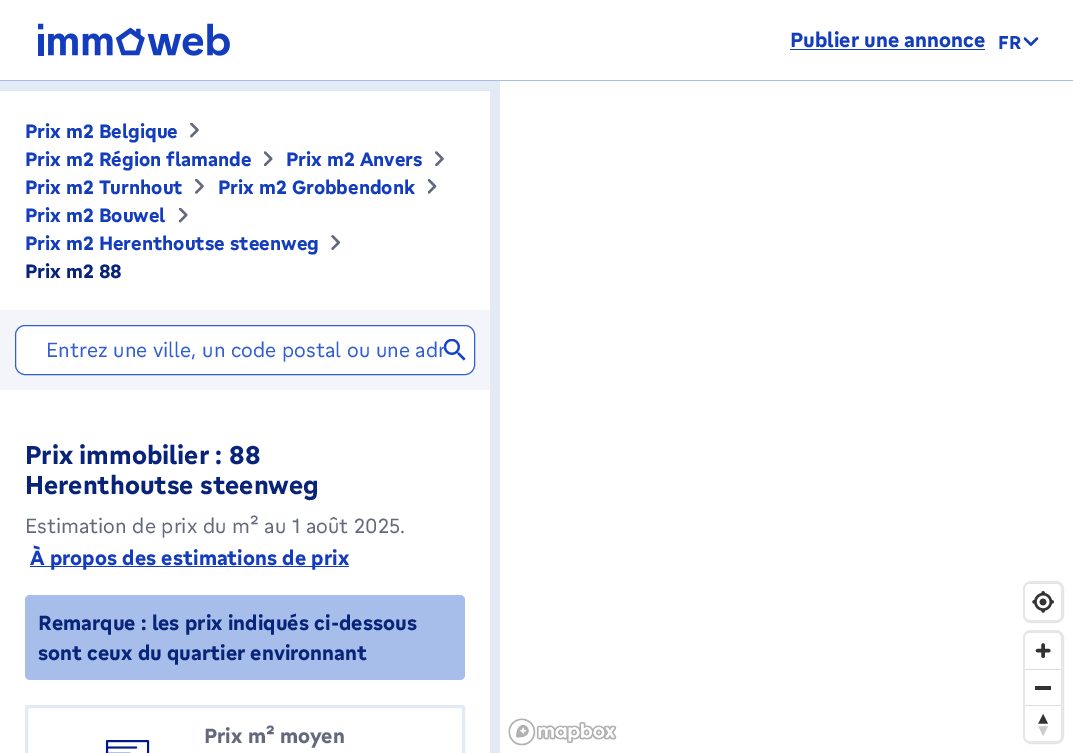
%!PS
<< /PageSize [1073 753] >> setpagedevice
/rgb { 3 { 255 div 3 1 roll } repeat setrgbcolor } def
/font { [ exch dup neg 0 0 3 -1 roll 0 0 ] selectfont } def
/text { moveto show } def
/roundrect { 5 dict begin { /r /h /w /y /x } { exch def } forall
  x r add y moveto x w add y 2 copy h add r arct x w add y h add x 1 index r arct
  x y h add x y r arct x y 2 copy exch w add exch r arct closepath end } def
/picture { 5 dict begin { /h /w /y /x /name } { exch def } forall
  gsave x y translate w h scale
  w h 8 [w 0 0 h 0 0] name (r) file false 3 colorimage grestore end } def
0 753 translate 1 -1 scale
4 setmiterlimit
255 255 255 rgb
0 0 1073 753 rectfill
168 190 234 rgb
0 80 1073 1 rectfill
(img_01.rgb) 38 23 192 33 picture
19 61 189 rgb
790 49 195 1 rectfill
(img_02.rgb) 1023 37 16 9 picture
228 234 245 rgb
0 81 500 672 rectfill
255 255 255 rgb
0 91 490 219 rectfill
(img_03.rgb) 190 123 9 15 picture
(img_04.rgb) 264 151 9 15 picture
(img_05.rgb) 435 151 9 15 picture
(img_06.rgb) 195 179 9 15 picture
(img_07.rgb) 428 179 9 15 picture
(img_08.rgb) 179 208 9 15 picture
(img_09.rgb) 331 235 10 15 picture
243 245 250 rgb
0 310 490 80 rectfill
255 255 255 rgb
15.5 325.5 459 49 9.5 roundrect gsave fill grestore
49 94 209 rgb
stroke
(img_10.rgb) 444 339 22 22 picture
255 255 255 rgb
0 390 490 363 rectfill
19 61 189 rgb
30 566 319 1 rectfill
168 190 234 rgb
25 595 440 85 5 roundrect fill
228 234 245 rgb
3 setlinewidth
26.5 706.5 437 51 1 roundrect stroke
(img_11.rgb) 105 740 45 13 picture
(img_12.rgb) 508 718 109 28 picture
230 230 230 rgb
1024.5 582.5 38 39 6.5 roundrect stroke
255 255 255 rgb
1025 584 36 36 5 roundrect fill
(img_13.rgb) 1032 591 22 22 picture
230 230 230 rgb
1024.5 631.5 38 111 6.5 roundrect stroke
255 255 255 rgb
1025 633 36 108 5 roundrect fill
(img_14.rgb) 1035 643 16 16 picture
221 221 221 rgb
1025 669 36 1 rectfill
51 51 51 rgb
1035 686 16 4 rectfill
221 221 221 rgb
1025 705 36 1 rectfill
(img_15.rgb) 1038 713 10 23 picture
/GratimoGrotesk-Bold 20 font
19 61 189 rgb
(Publier une annonce) 790 47 text
/GratimoGrotesk-Bold 18 font
(FR) 998 49 text
/GratimoGrotesk-Bold 18.75 font
(Prix m2 Belgique) 25 138 text
(Prix m2 Région flamande) 25 166 text
(Prix m2 Anvers) 286 166 text
(Prix m2 Turnhout) 25 194 text
(Prix m2 Grobbendonk) 218 194 text
(Prix m2 Bouwel) 25 222 text
(Prix m2 Herenthoutse steenweg) 25 250 text
8 36 121 rgb
(Prix m2 88) 25 278 text
/GratimoGrotesk-Regular 20 font
49 94 209 rgb
(Entrez une ville, un code postal ou une adr) 46 357 text
/GratimoGrotesk-Bold 25 font
8 36 121 rgb
(Prix immobilier : 88) 25 464 text
(Herenthoutse steenweg) 25 494 text
/GratimoGrotesk-Regular 20 font
99 105 125 rgb
(Estimation de prix du m² au 1 août 2025.) 25 533 text
/GratimoGrotesk-Bold 20 font
19 61 189 rgb
(À propos des estimations de prix) 30 565 text
8 36 121 rgb
(Remarque : les prix indiqués ci-dessous) 38 630 text
(sont ceux du quartier environnant) 38 660 text
99 105 125 rgb
(Prix m² moyen) 204 743 text
showpage
